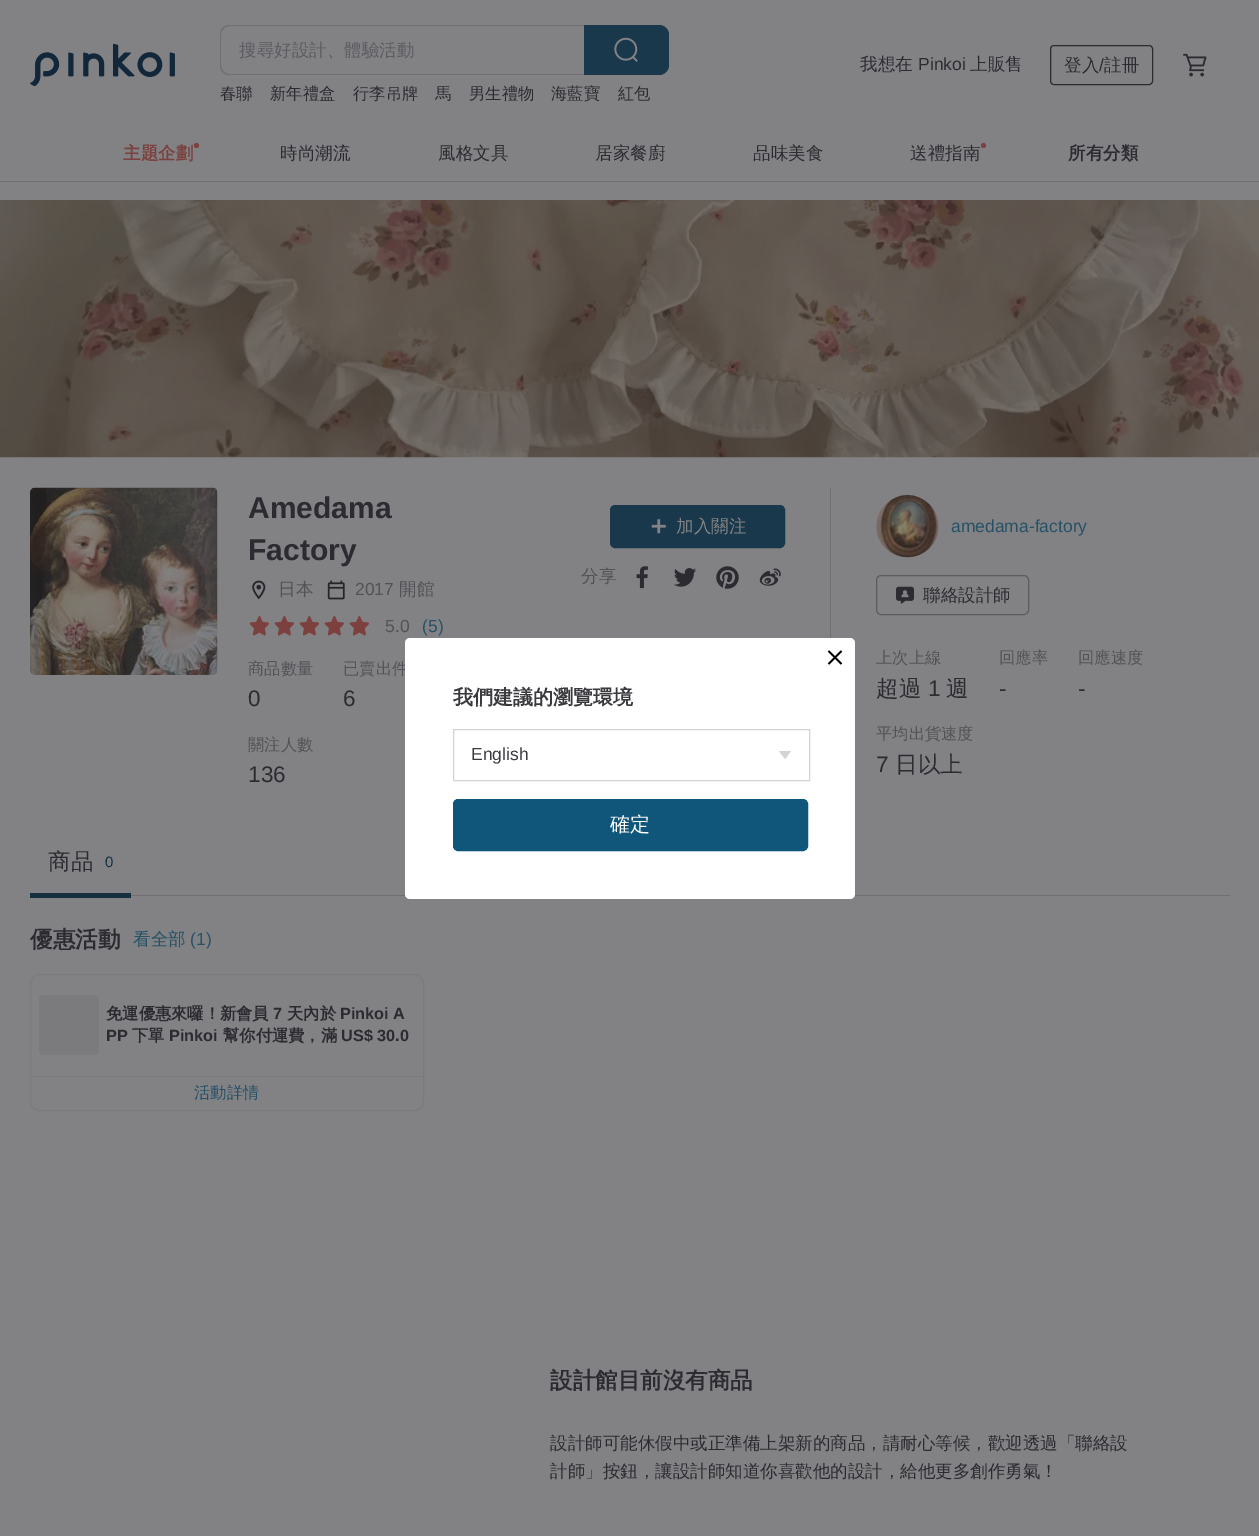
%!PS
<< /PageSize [1259 1536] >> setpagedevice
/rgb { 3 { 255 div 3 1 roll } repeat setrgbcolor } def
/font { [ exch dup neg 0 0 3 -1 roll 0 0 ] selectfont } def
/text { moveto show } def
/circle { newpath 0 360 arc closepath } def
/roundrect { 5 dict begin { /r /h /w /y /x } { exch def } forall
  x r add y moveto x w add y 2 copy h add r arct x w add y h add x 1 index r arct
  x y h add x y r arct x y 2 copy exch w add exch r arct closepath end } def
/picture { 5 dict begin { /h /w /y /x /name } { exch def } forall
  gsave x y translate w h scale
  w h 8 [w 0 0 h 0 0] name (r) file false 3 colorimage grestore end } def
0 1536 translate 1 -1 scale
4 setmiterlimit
130 130 133 rgb
0 0 1259 1536 rectfill
(img_01.rgb) 30 43 145 44 picture
111 111 115 rgb
230 25 moveto 354 0 rlineto 0 50 rlineto -354 0 rlineto -6 0 -10 -4 -10 -10 rcurveto 0 -30 rlineto 0 -6 4 -10 10 -10 rcurveto closepath 230 26 moveto 354 0 rlineto 0 48 rlineto -354 0 rlineto -5 0 -9 -4 -9 -9 rcurveto 0 -30 rlineto 0 -5 4 -9 9 -9 rcurveto closepath eofill
25 56 75 rgb
584 25 moveto 75 0 rlineto 5.5 0 10 4.5 10 10 rcurveto 0 30 rlineto 0 5.5 -4.5 10 -10 10 rcurveto -75 0 rlineto closepath fill
(img_02.rgb) 614 37 24 25 picture
43 43 49 rgb
1050.5 45.5 102 39 3.5 roundrect stroke
(img_03.rgb) 1183 53 24 24 picture
111 111 115 rgb
0 181 1259 1 rectfill
124 65 62 rgb
196.5 145.5 2.5 circle fill
983.5 145.5 2.5 circle fill
(img_04.rgb) 0 200 1259 258 picture
(img_05.rgb) 30 488 187 187 picture
(img_06.rgb) 30 487 188 188 picture
(img_07.rgb) 252 580 14 20 picture
(img_08.rgb) 327 580 18 20 picture
(img_09.rgb) 249 615 21 21 picture
(img_09.rgb) 274 615 21 21 picture
(img_09.rgb) 299 615 21 21 picture
(img_09.rgb) 324 615 21 21 picture
(img_09.rgb) 349 615 21 21 picture
25 56 75 rgb
610.5 505.5 174 42 4.5 roundrect gsave fill grestore
stroke
(img_10.rgb) 651 519 15 15 picture
(img_11.rgb) 636 566 12 23 picture
(img_12.rgb) 674 568 22 19 picture
(img_13.rgb) 716 566 23 23 picture
(img_14.rgb) 759 568 22 18 picture
111 111 115 rgb
830 488 1 150 rectfill
(img_15.rgb) 876 495 63 63 picture
92 92 97 rgb
876.5 575.5 152 39 4.5 roundrect stroke
(img_16.rgb) 896 586 18 18 picture
111 111 115 rgb
131 895 1099 1 rectfill
21 47 64 rgb
30 893 101 5 rectfill
123 123 126 rgb
30.5 974.5 393 136 9.5 roundrect stroke
39 995 60 60 5 roundrect fill
31 1076 392 1 rectfill
/WenQuanYiZenHei-Medium 17.5 font
92 92 97 rgb
(搜尋好設計、體驗活動) 239 56 text
/WenQuanYiZenHei-Medium 16.25 font
43 43 49 rgb
(春聯) 220 99 text
(新年禮盒) 270 99 text
(行李吊牌) 353 99 text
(馬) 435 99 text
(男生禮物) 469 99 text
(海藍寶) 551 99 text
(紅包) 618 99 text
/WenQuanYiZenHei-Medium 17.5 font
(我想在) 860 70 text
/LiberationSans-Regular 17.5 font
(Pinkoi) 918 70 text
/WenQuanYiZenHei-Medium 17.5 font
(上販售) 970 70 text
(登入) 1064 71 text
/LiberationSans-Regular 17.5 font
(/) 1099 71 text
/WenQuanYiZenHei-Medium 17.5 font
(註冊) 1104 71 text
/WenQuanYiZenHei-Bold 17.5 font
124 65 62 rgb
(主題企劃) 123 159 text
/WenQuanYiZenHei-Medium 17.5 font
43 43 49 rgb
(時尚潮流) 280 159 text
(風格文具) 438 159 text
(居家餐廚) 595 159 text
(品味美食) 753 159 text
(送禮指南) 910 159 text
/WenQuanYiZenHei-Bold 17.5 font
(所有分類) 1068 159 text
/LiberationSans-Bold 30 font
(Amedama) 248 518 text
(Factory) 248 560 text
/WenQuanYiZenHei-Medium 17.5 font
82 82 87 rgb
(日本) 278 595 text
/LiberationSans-Regular 17.5 font
(2017) 355 595 text
/WenQuanYiZenHei-Medium 17.5 font
(開館) 399 595 text
/LiberationSans-Regular 17.5 font
(5.0) 385 632 text
38 81 102 rgb
(\(5\)) 422 632 text
/WenQuanYiZenHei-Medium 16.25 font
82 82 87 rgb
(商品數量) 248 674 text
/LiberationSans-Regular 22.5 font
43 43 49 rgb
(0) 248 706 text
/WenQuanYiZenHei-Medium 16.25 font
82 82 87 rgb
(已賣出件) 343 674 text
/LiberationSans-Regular 22.5 font
43 43 49 rgb
(6) 343 706 text
/WenQuanYiZenHei-Medium 16.25 font
82 82 87 rgb
(關注人數) 248 750 text
/LiberationSans-Regular 22.5 font
43 43 49 rgb
(136) 248 782 text
/WenQuanYiZenHei-Medium 17.5 font
130 130 133 rgb
(加入關注) 676 532 text
82 82 87 rgb
(分享) 581 582 text
/LiberationSans-Regular 17.5 font
38 81 102 rgb
(amedama-factory) 951 532 text
/WenQuanYiZenHei-Medium 17.5 font
43 43 49 rgb
(聯絡設計師) 923 601 text
/WenQuanYiZenHei-Medium 16.25 font
82 82 87 rgb
(上次上線) 876 663 text
/WenQuanYiZenHei-Medium 22.5 font
43 43 49 rgb
(超過) 876 696 text
/LiberationSans-Regular 22.5 font
(1) 928 696 text
/WenQuanYiZenHei-Medium 22.5 font
(週) 946 696 text
/WenQuanYiZenHei-Medium 16.25 font
82 82 87 rgb
(回應率) 999 663 text
/LiberationSans-Regular 22.5 font
43 43 49 rgb
(-) 999 696 text
/WenQuanYiZenHei-Medium 16.25 font
82 82 87 rgb
(回應速度) 1078 663 text
/LiberationSans-Regular 22.5 font
43 43 49 rgb
(-) 1078 696 text
/WenQuanYiZenHei-Medium 16.25 font
82 82 87 rgb
(平均出貨速度) 876 739 text
/LiberationSans-Regular 22.5 font
43 43 49 rgb
(7) 876 772 text
/WenQuanYiZenHei-Medium 22.5 font
(日以上) 895 772 text
(商品) 48 869 text
/LiberationSans-Regular 15 font
21 47 64 rgb
(0) 105 867 text
/WenQuanYiZenHei-Bold 22.5 font
43 43 49 rgb
(優惠活動) 30 947 text
/WenQuanYiZenHei-Medium 17.5 font
38 81 102 rgb
(看全部) 133 945 text
/LiberationSans-Regular 17.5 font
(\(1\)) 190 945 text
/WenQuanYiZenHei-Bold 16.25 font
43 43 49 rgb
(免運優惠來囉！新會員) 106 1019 text
/LiberationSans-Bold 16.25 font
(7) 273 1019 text
/WenQuanYiZenHei-Bold 16.25 font
(天內於) 287 1019 text
/LiberationSans-Bold 16.25 font
(Pinkoi A) 340 1019 text
(PP) 106 1041 text
/WenQuanYiZenHei-Bold 16.25 font
(下單) 132 1041 text
/LiberationSans-Bold 16.25 font
(Pinkoi) 169 1041 text
/WenQuanYiZenHei-Bold 16.25 font
(幫你付運費，滿) 223 1041 text
/LiberationSans-Bold 16.25 font
(US$ 30.0) 341 1041 text
/WenQuanYiZenHei-Medium 16.25 font
38 81 102 rgb
(活動詳情) 194 1098 text
/WenQuanYiZenHei-Bold 22.5 font
43 43 49 rgb
(設計館目前沒有商品) 550 1388 text
/WenQuanYiZenHei-Medium 17.5 font
(設計師可能休假中或正準備上架新的商品，請耐心等候，歡迎透過「聯絡設) 550 1449 text
(計師」按鈕，讓設計師知道你喜歡他的設計，給他更多創作勇氣！) 550 1477 text
255 255 255 rgb
405 638 450 261 5 roundrect fill
(img_17.rgb) 827 650 16 15 picture
/WenQuanYiZenHei-Bold 20 font
57 57 62 rgb
(我們建議的瀏覽環境) 453 704 text
211 211 213 rgb
453.5 729.5 356 51 rectstroke
779 751 moveto 12 0 rlineto -6 8 rlineto closepath eofill
/LiberationSans-Regular 17.5 font
57 57 62 rgb
(English) 471 760 text
16 86 123 rgb
453.5 799.5 354 51 4.5 roundrect gsave fill grestore
stroke
/WenQuanYiZenHei-Medium 20 font
255 255 255 rgb
(確定) 610 831 text
showpage
